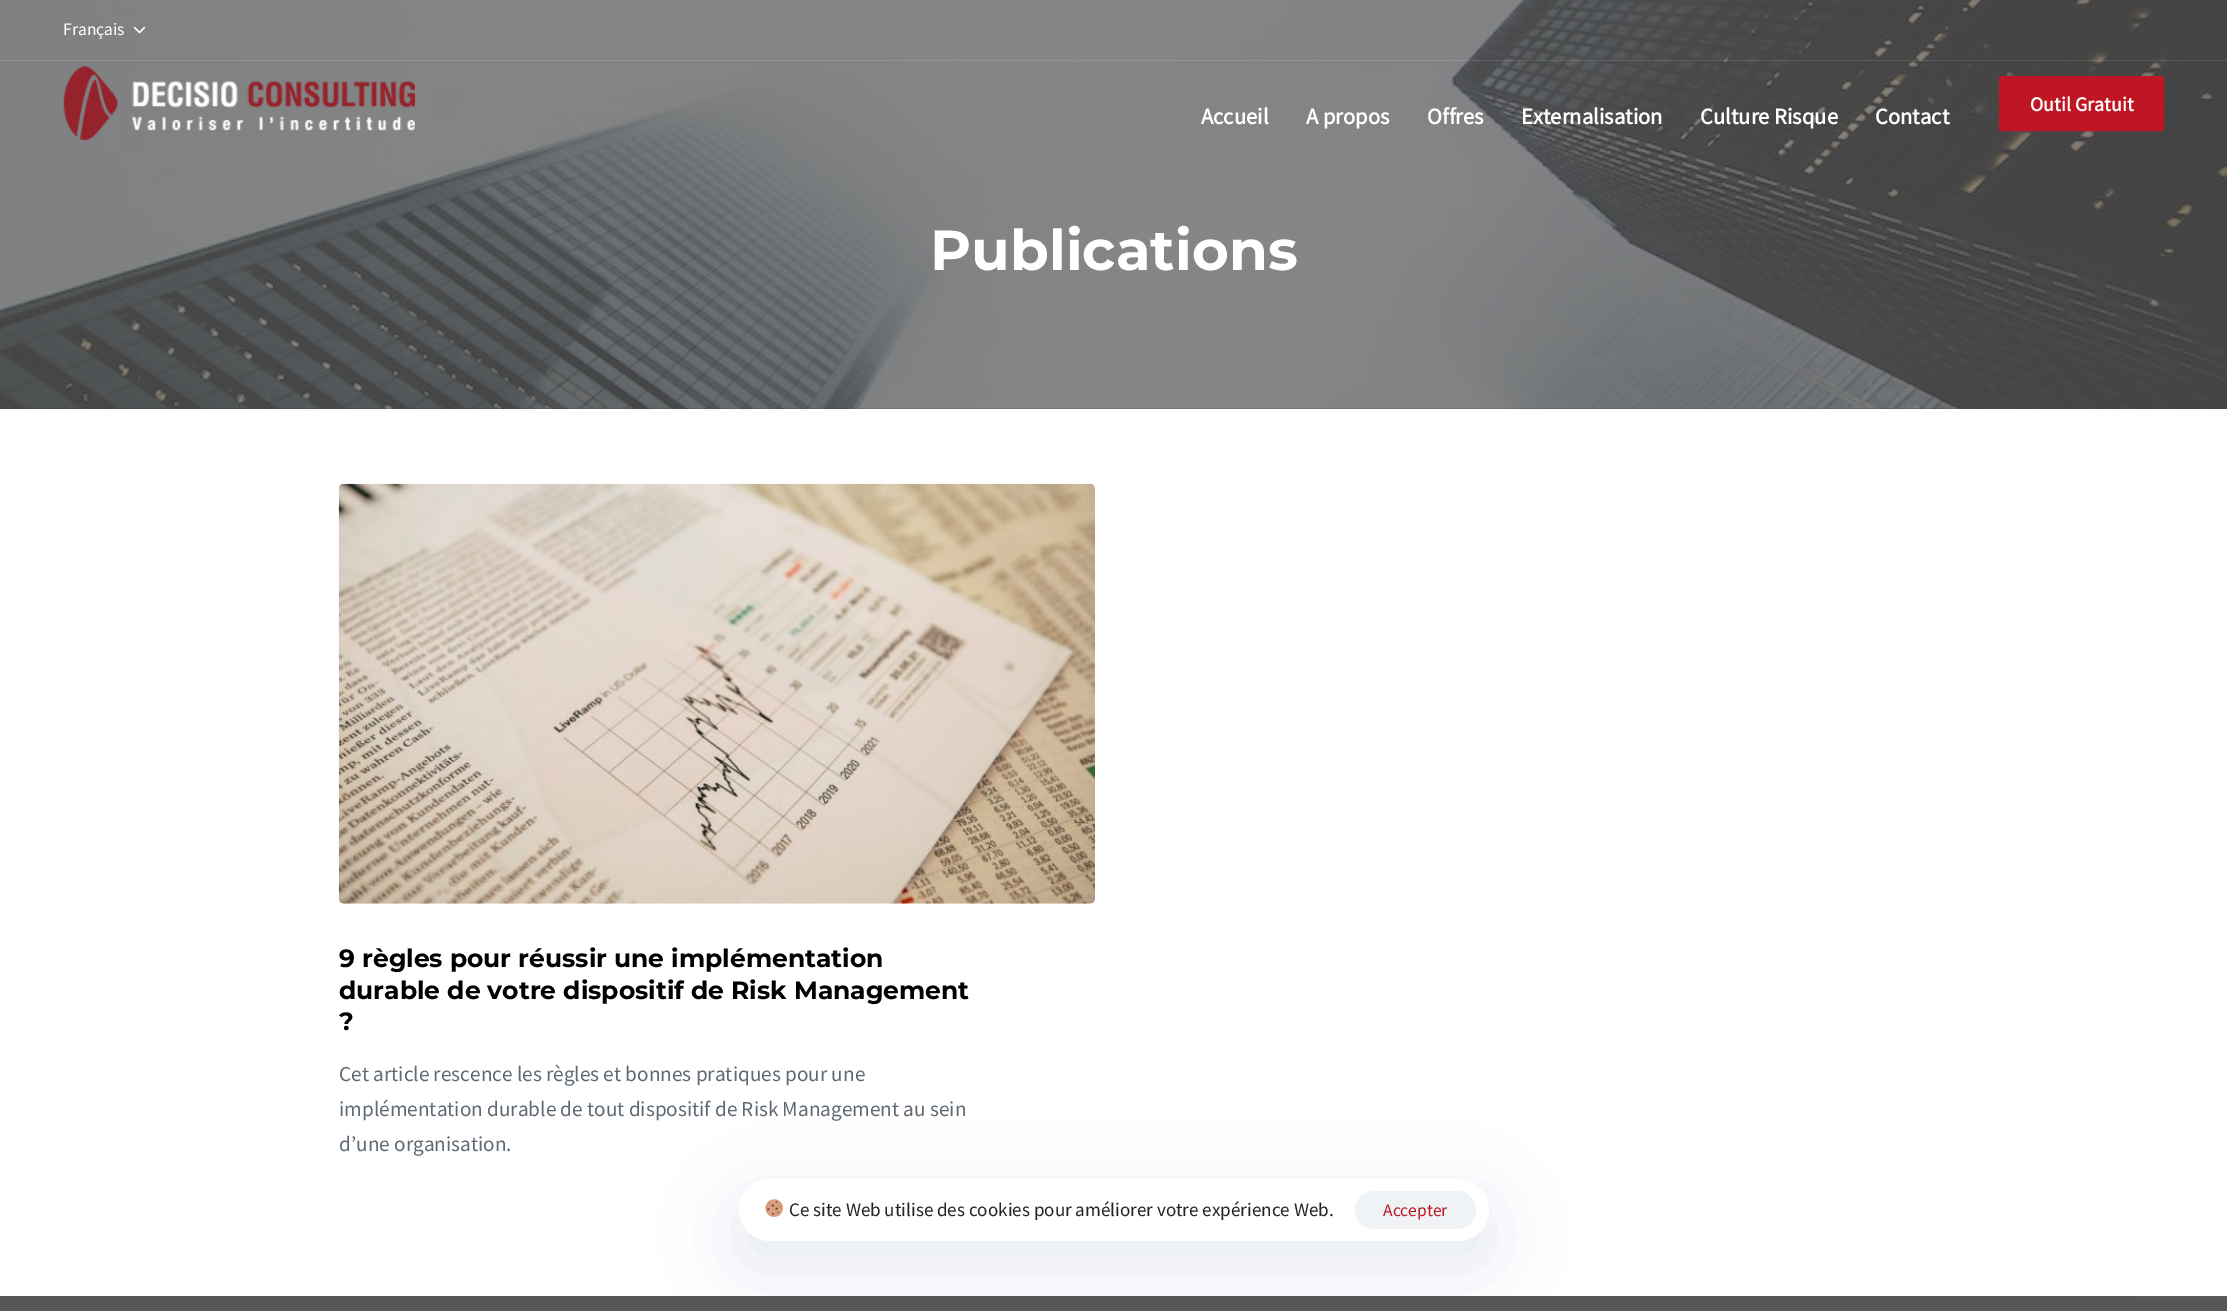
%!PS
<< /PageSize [2227 1311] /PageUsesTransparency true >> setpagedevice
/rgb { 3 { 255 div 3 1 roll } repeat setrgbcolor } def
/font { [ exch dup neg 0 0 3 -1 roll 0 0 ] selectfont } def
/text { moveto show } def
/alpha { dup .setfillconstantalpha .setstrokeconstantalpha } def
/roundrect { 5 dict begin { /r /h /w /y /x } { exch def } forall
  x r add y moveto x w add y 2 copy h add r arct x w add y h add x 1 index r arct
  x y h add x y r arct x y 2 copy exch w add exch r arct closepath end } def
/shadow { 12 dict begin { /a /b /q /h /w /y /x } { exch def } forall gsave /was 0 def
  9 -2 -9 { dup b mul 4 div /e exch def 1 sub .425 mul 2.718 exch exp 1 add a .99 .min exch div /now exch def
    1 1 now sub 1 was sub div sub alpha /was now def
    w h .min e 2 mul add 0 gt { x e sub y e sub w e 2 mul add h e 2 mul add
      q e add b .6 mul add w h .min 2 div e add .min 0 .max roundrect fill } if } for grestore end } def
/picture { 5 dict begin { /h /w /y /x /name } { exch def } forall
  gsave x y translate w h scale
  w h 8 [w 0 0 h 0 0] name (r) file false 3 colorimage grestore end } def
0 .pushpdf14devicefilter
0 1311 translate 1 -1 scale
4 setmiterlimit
255 255 255 rgb
0 0 2227 1311 rectfill
(img_01.rgb) 0 0 2227 409 picture
0.1 alpha
0 60 2227 1 rectfill
1 alpha
(img_02.rgb) 133 26 13 8 picture
(img_03.rgb) 63 66 352 75 picture
190 22 35 rgb
1999.5 76.5 164 54 2 roundrect gsave fill grestore
stroke
87 86 86 rgb
0 1296 2227 15 rectfill
128 128 128 rgb
2140 1219 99 75 2.5 3 1 shadow
255 255 255 rgb
2134 1213 93 83 rectfill
(img_04.rgb) 338 483 757 421 picture
92 107 149 rgb
739 1204 750 62 31 37.5 0.15 shadow
255 255 255 rgb
739 1179 750 62 31 roundrect fill
(img_05.rgb) 765 1199 18 18 picture
239 243 245 rgb
1355 1191 121 38 19 roundrect fill
/SourceSansPro-Regular 17.5 font
255 255 255 rgb
(Français) 63 35 text
/SourceSansPro-Bold 20 font
(Outil Gratuit) 2030 111 text
/SourceSansPro-Bold 22.5 font
(Accueil) 1201 124 text
(A propos) 1306 124 text
(Offres) 1427 124 text
(Externalisation) 1521 124 text
(Culture Risque) 1700 124 text
(Contact) 1875 124 text
/Montserrat-Bold 56.25 font
(Publications) 930 270 text
/Montserrat-Bold 25 font
0 0 0 rgb
(9 règles pour réussir une implémentation) 339 967 text
(durable de votre dispositif de Risk Management) 339 999 text
(?) 339 1030 text
/SourceSansPro-Regular 21.25 font
95 105 115 rgb
(Cet article rescence les règles et bonnes pratiques pour une) 339 1081 text
(implémentation durable de tout dispositif de Risk Management au sein) 339 1116 text
(d’une organisation.) 339 1151 text
/SourceSansPro-Regular 19.1 font
36 36 36 rgb
(Ce site Web utilise des cookies pour améliorer votre expérience Web.) 789 1216 text
/SourceSansPro-Regular 17.5 font
190 22 35 rgb
(Accepter) 1383 1216 text
.poppdf14devicefilter showpage
